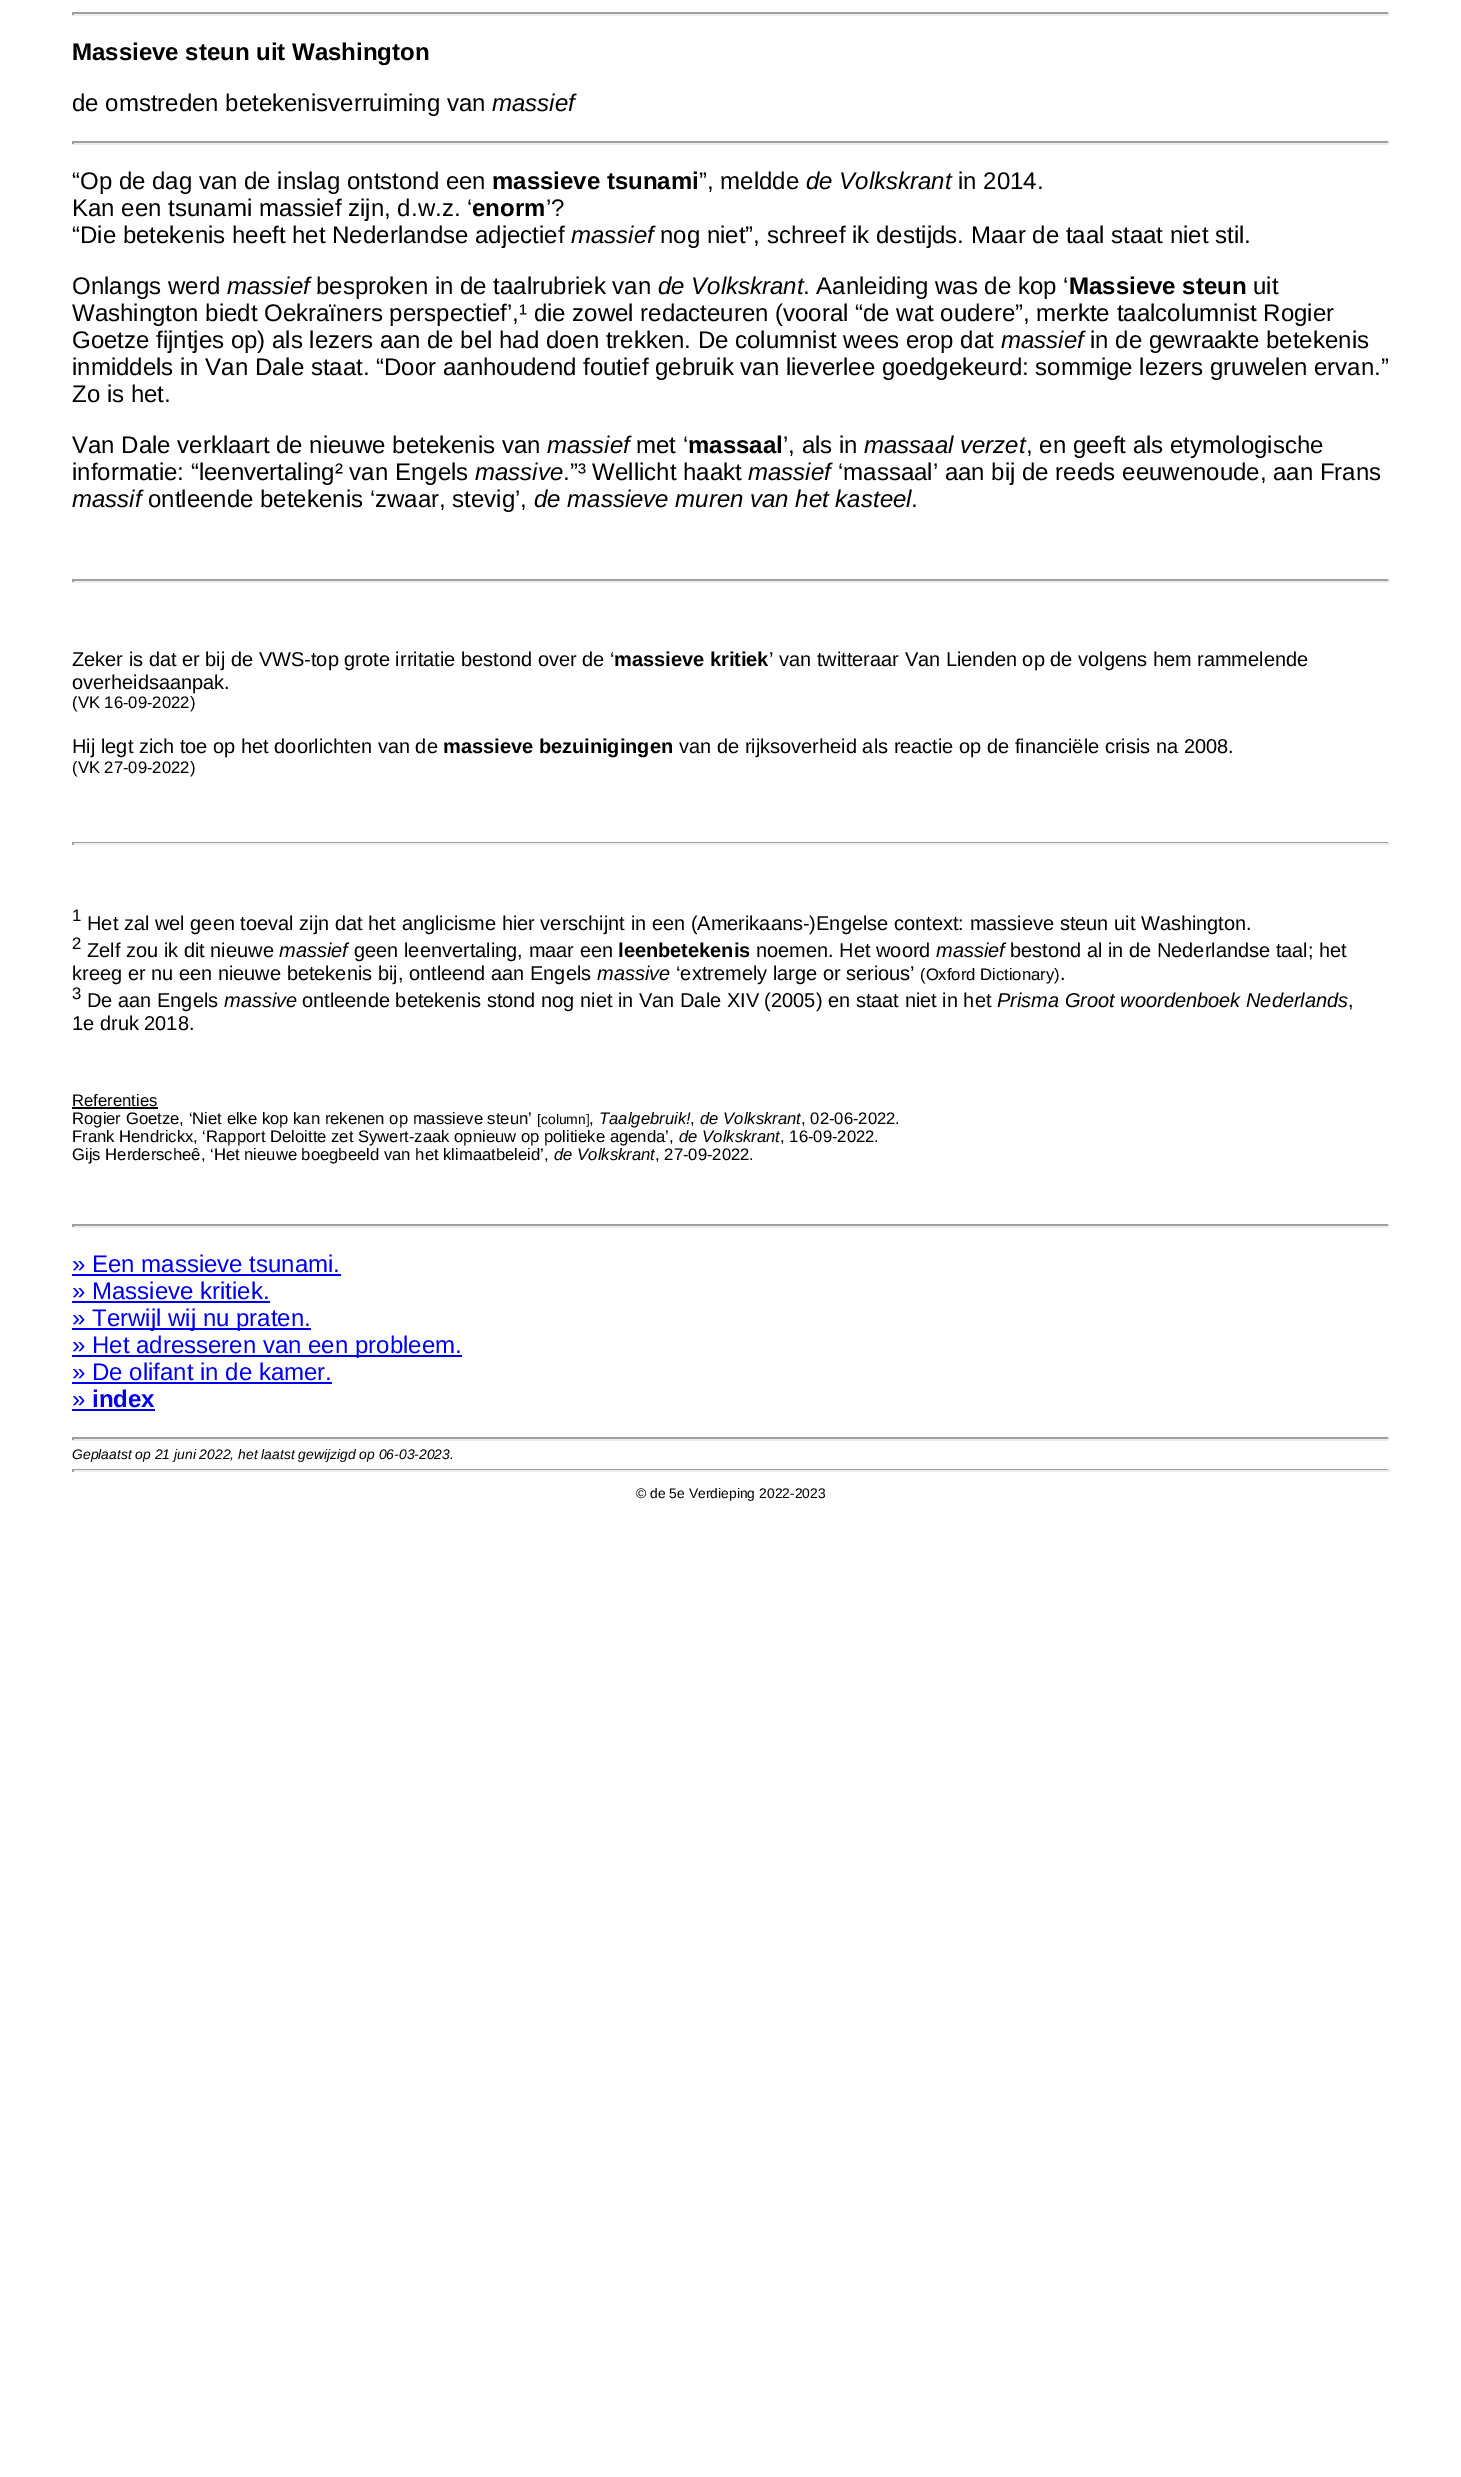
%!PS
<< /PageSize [1461 2477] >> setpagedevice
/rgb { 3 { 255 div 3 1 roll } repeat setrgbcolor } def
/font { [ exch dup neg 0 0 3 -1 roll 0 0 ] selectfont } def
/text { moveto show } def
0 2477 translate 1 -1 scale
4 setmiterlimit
255 255 255 rgb
0 0 1461 2477 rectfill
159 159 159 rgb
72 12 1317 2 rectfill
238 238 238 rgb
1388 12 2 3 rectfill
72 14 1317 2 rectfill
159 159 159 rgb
72 12 2 3 rectfill
72 141 1317 2 rectfill
238 238 238 rgb
1388 141 2 3 rectfill
72 143 1317 2 rectfill
159 159 159 rgb
72 141 2 3 rectfill
72 579 1317 2 rectfill
238 238 238 rgb
1388 579 2 3 rectfill
72 581 1317 2 rectfill
159 159 159 rgb
72 579 2 3 rectfill
72 842 1317 1 rectfill
238 238 238 rgb
1388 842 2 3 rectfill
72 843 1317 2 rectfill
159 159 159 rgb
72 842 2 3 rectfill
0 0 0 rgb
72 1107 86 2 rectfill
159 159 159 rgb
72 1224 1317 2 rectfill
238 238 238 rgb
1388 1224 2 3 rectfill
72 1226 1317 2 rectfill
159 159 159 rgb
72 1224 2 3 rectfill
0 0 238 rgb
72 1274 269 2 rectfill
72 1301 198 2 rectfill
72 1328 239 2 rectfill
72 1355 390 2 rectfill
72 1382 260 2 rectfill
72 1409 83 2 rectfill
159 159 159 rgb
72 1437 1317 2 rectfill
238 238 238 rgb
1388 1437 2 3 rectfill
72 1439 1317 2 rectfill
159 159 159 rgb
72 1437 2 3 rectfill
72 1469 1317 1 rectfill
238 238 238 rgb
1388 1469 2 3 rectfill
72 1470 1317 2 rectfill
159 159 159 rgb
72 1469 2 3 rectfill
/LiberationSans-Bold 24 font
0 0 0 rgb
(Massieve steun uit Washington) 72 60 text
/LiberationSans-Regular 24 font
(de omstreden betekenisverruiming van) 72 111 text
/LiberationSans-Italic 24 font
(massief) 492 111 text
/LiberationSans-Regular 24 font
(“Op de dag van de inslag ontstond een) 72 189 text
/LiberationSans-Bold 24 font
(massieve tsunami) 492 189 text
/LiberationSans-Regular 24 font
(”, meldde) 699 189 text
/LiberationSans-Italic 24 font
(de Volkskrant) 806 189 text
/LiberationSans-Regular 24 font
(in 2014.) 958 189 text
(Kan een tsunami massief zijn, d.w.z. ‘) 72 216 text
/LiberationSans-Bold 24 font
(enorm) 472 216 text
/LiberationSans-Regular 24 font
(’?) 546 216 text
(“Die betekenis heeft het Nederlandse adjectief) 72 243 text
/LiberationSans-Italic 24 font
(massief) 571 243 text
/LiberationSans-Regular 24 font
(nog niet”, schreef ik destijds. Maar de taal staat niet stil.) 660 243 text
(Onlangs werd) 72 294 text
/LiberationSans-Italic 24 font
(massief) 227 294 text
/LiberationSans-Regular 24 font
(besproken in de taalrubriek van) 316 294 text
/LiberationSans-Italic 24 font
(de Volkskrant) 658 294 text
/LiberationSans-Regular 24 font
(. Aanleiding was de kop ‘) 803 294 text
/LiberationSans-Bold 24 font
(Massieve steun) 1069 294 text
/LiberationSans-Regular 24 font
(uit) 1253 294 text
(Washington biedt Oekraïners perspectief’,¹ die zowel redacteuren \(vooral “de wat oudere”, merkte taalcolumnist Rogier) 72 321 text
(Goetze fijntjes op\) als lezers aan de bel had doen trekken. De columnist wees erop dat) 72 348 text
/LiberationSans-Italic 24 font
(massief) 1001 348 text
/LiberationSans-Regular 24 font
(in de gewraakte betekenis) 1090 348 text
(inmiddels in Van Dale staat. “Door aanhoudend foutief gebruik van lieverlee goedgekeurd: sommige lezers gruwelen ervan.”) 72 375 text
(Zo is het.) 72 402 text
(Van Dale verklaart de nieuwe betekenis van) 72 453 text
/LiberationSans-Italic 24 font
(massief) 547 453 text
/LiberationSans-Regular 24 font
(met ‘) 636 453 text
/LiberationSans-Bold 24 font
(massaal) 688 453 text
/LiberationSans-Regular 24 font
(’, als in) 783 453 text
/LiberationSans-Italic 24 font
(massaal verzet) 864 453 text
/LiberationSans-Regular 24 font
(, en geeft als etymologische) 1026 453 text
(informatie: “leenvertaling² van Engels) 72 480 text
/LiberationSans-Italic 24 font
(massive) 475 480 text
/LiberationSans-Regular 24 font
(.”³ Wellicht haakt) 563 480 text
/LiberationSans-Italic 24 font
(massief) 748 480 text
/LiberationSans-Regular 24 font
(‘massaal’ aan bij de reeds eeuwenoude, aan Frans) 838 480 text
/LiberationSans-Italic 24 font
(massif) 72 507 text
/LiberationSans-Regular 24 font
(ontleende betekenis ‘zwaar, stevig’,) 148 507 text
/LiberationSans-Italic 24 font
(de massieve muren van het kasteel) 534 507 text
/LiberationSans-Regular 24 font
(.) 911 507 text
/LiberationSans-Regular 20 font
(Zeker is dat er bij de VWS-top grote irritatie bestond over de ‘) 72 666 text
/LiberationSans-Bold 20 font
(massieve kritiek) 614 666 text
/LiberationSans-Regular 20 font
(’ van twitteraar Van Lienden op de volgens hem rammelende) 769 666 text
(overheidsaanpak.) 72 689 text
/LiberationSans-Regular 16.65 font
(\(VK 16-09-2022\)) 72 708 text
/LiberationSans-Regular 20 font
(Hij legt zich toe op het doorlichten van de) 72 753 text
/LiberationSans-Bold 20 font
(massieve bezuinigingen) 443 753 text
/LiberationSans-Regular 20 font
(van de rijksoverheid als reactie op de financiële crisis na 2008.) 679 753 text
/LiberationSans-Regular 16.65 font
(\(VK 27-09-2022\)) 72 773 text
(1) 72 921 text
/LiberationSans-Regular 20 font
(Het zal wel geen toeval zijn dat het anglicisme hier verschijnt in een \(Amerikaans-\)Engelse context: massieve steun uit Washington.) 87 930 text
/LiberationSans-Regular 16.65 font
(2) 72 949 text
/LiberationSans-Regular 20 font
(Zelf zou ik dit nieuwe) 87 957 text
/LiberationSans-Italic 20 font
(massief) 279 957 text
/LiberationSans-Regular 20 font
(geen leenvertaling, maar een) 354 957 text
/LiberationSans-Bold 20 font
(leenbetekenis) 618 957 text
/LiberationSans-Regular 20 font
(noemen. Het woord) 756 957 text
/LiberationSans-Italic 20 font
(massief) 936 957 text
/LiberationSans-Regular 20 font
(bestond al in de Nederlandse taal; het) 1010 957 text
(kreeg er nu een nieuwe betekenis bij, ontleend aan Engels) 72 980 text
/LiberationSans-Italic 20 font
(massive) 597 980 text
/LiberationSans-Regular 20 font
(‘extremely large or serious’) 676 980 text
/LiberationSans-Regular 16.65 font
(\(Oxford Dictionary\)) 920 980 text
/LiberationSans-Regular 20 font
(.) 1060 980 text
/LiberationSans-Regular 16.65 font
(3) 72 999 text
/LiberationSans-Regular 20 font
(De aan Engels) 87 1007 text
/LiberationSans-Italic 20 font
(massive) 224 1007 text
/LiberationSans-Regular 20 font
(ontleende betekenis stond nog niet in Van Dale XIV \(2005\) en staat niet in het) 302 1007 text
/LiberationSans-Italic 20 font
(Prisma Groot woordenboek Nederlands) 997 1007 text
/LiberationSans-Regular 20 font
(,) 1348 1007 text
(1e druk 2018.) 72 1030 text
/LiberationSans-Regular 16.65 font
(Referenties) 72 1106 text
(Rogier Goetze, ‘Niet elke kop kan rekenen op massieve steun’) 72 1124 text
/LiberationSans-Regular 13.9 font
([column]) 537 1124 text
/LiberationSans-Regular 16.65 font
(,) 589 1124 text
/LiberationSans-Italic 16.65 font
(Taalgebruik!) 599 1124 text
/LiberationSans-Regular 16.65 font
(,) 690 1124 text
/LiberationSans-Italic 16.65 font
(de Volkskrant) 700 1124 text
/LiberationSans-Regular 16.65 font
(, 02-06-2022.) 801 1124 text
(Frank Hendrickx, ‘Rapport Deloitte zet Sywert-zaak opnieuw op politieke agenda’,) 72 1142 text
/LiberationSans-Italic 16.65 font
(de Volkskrant) 679 1142 text
/LiberationSans-Regular 16.65 font
(, 16-09-2022.) 780 1142 text
(Gijs Herderscheê, ‘Het nieuwe boegbeeld van het klimaatbeleid’,) 72 1160 text
/LiberationSans-Italic 16.65 font
(de Volkskrant) 554 1160 text
/LiberationSans-Regular 16.65 font
(, 27-09-2022.) 655 1160 text
/LiberationSans-Regular 24 font
0 0 238 rgb
(» Een massieve tsunami.) 72 1272 text
(» Massieve kritiek.) 72 1299 text
(» Terwijl wij nu praten.) 72 1326 text
(» Het adresseren van een probleem.) 72 1353 text
(» De olifant in de kamer.) 72 1380 text
(») 72 1407 text
/LiberationSans-Bold 24 font
(index) 92 1407 text
/LiberationSans-Italic 13.9 font
0 0 0 rgb
(Geplaatst op 21 juni 2022, het laatst gewijzigd op 06-03-2023.) 72 1459 text
/LiberationSans-Regular 13.9 font
(© de 5e Verdieping 2022-2023) 636 1498 text
showpage
